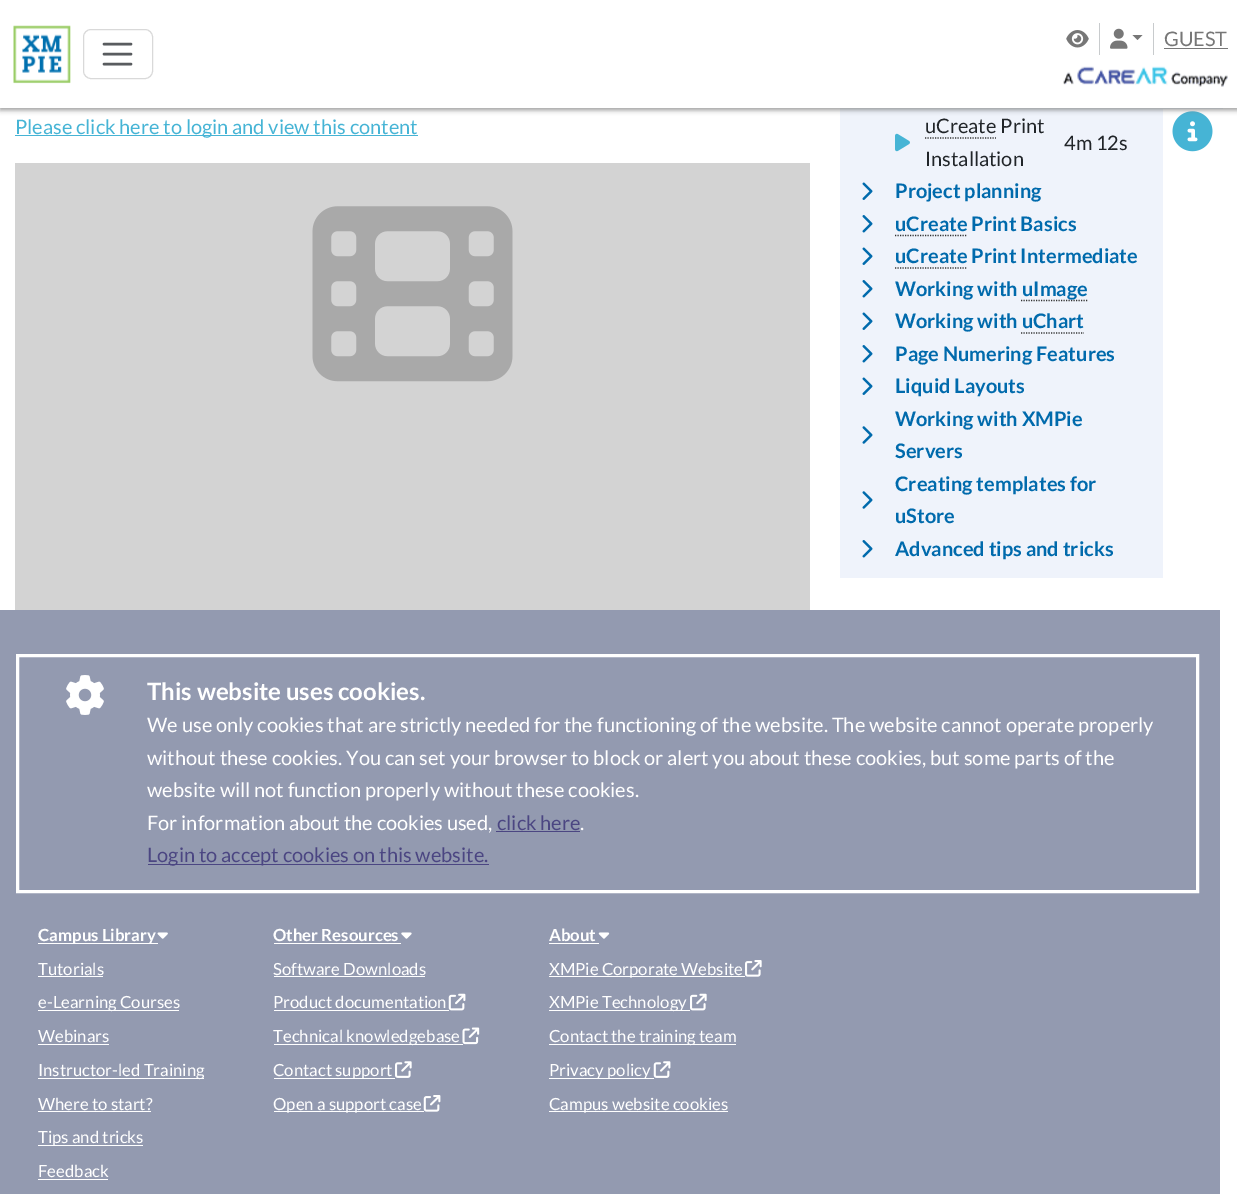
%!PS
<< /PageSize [1237 1194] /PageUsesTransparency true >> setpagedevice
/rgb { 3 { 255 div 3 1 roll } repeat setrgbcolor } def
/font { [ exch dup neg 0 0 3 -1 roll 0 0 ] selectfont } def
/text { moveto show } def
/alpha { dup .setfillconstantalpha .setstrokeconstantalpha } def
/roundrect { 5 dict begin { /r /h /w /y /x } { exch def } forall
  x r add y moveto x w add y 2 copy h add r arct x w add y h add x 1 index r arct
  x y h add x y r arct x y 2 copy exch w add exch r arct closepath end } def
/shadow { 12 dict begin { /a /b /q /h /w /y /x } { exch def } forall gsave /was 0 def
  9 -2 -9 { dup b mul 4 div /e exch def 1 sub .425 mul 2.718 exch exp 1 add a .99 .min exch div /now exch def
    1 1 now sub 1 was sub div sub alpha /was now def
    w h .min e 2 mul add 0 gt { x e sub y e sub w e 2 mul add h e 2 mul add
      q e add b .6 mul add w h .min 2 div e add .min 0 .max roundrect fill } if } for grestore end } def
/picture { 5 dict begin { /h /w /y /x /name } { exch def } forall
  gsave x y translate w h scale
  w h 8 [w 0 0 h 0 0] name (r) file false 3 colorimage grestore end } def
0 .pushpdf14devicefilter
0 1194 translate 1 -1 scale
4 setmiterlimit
255 255 255 rgb
0 0 1237 1194 rectfill
239 243 251 rgb
840 108 323 470 rectfill
1163 108 60 1 rectfill
(img_10.rgb) 1172 111 41 41 picture
119 119 119 rgb
0 3 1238 107 0 2.5 0.75 shadow
255 255 255 rgb
0 0 1237 108 rectfill
(img_01.rgb) 13 25 58 59 picture
217 217 217 rgb
83.5 29.5 69 49 7.5 roundrect stroke
89 92 95 rgb
2.5 setlinewidth
1 setlinecap
104 44 moveto 27 0 rlineto 104 54 moveto 27 0 rlineto 104 64 moveto 27 0 rlineto stroke
200 203 205 rgb
1099 23 1 32 rectfill
(img_02.rgb) 1066 30 23 18 picture
1153 23 1 32 rectfill
(img_03.rgb) 1110 28 18 21 picture
119 119 119 rgb
1132.5 35 moveto 10 0 rlineto -5 5 rlineto closepath fill
1164 48 64 1 rectfill
(img_04.rgb) 1063 66 165 21 picture
70 180 213 rgb
15 135 403 1 rectfill
211 211 211 rgb
15 163 795 447 rectfill
(img_05.rgb) 312 206 201 176 picture
(img_06.rgb) 895 133 15 19 picture
51 51 51 rgb
1.2 setlinewidth
0 setlinecap
[1.25 1.25] 0 setdash
925 138 moveto 71 0 rlineto stroke
(img_07.rgb) 862 182 11 18 picture
(img_08.rgb) 862 215 11 18 picture
895 235.5 moveto 72.5 0 rlineto stroke
(img_07.rgb) 862 247 11 18 picture
895 268 moveto 72.5 0 rlineto stroke
(img_08.rgb) 862 280 11 18 picture
1021 300.5 moveto 66.5 0 rlineto stroke
(img_07.rgb) 862 312 11 18 picture
1021 333 moveto 63 0 rlineto stroke
(img_08.rgb) 862 345 11 18 picture
(img_07.rgb) 862 377 11 18 picture
(img_09.rgb) 862 426 11 18 picture
(img_09.rgb) 862 491 11 18 picture
(img_08.rgb) 862 540 11 18 picture
147 154 176 rgb
0 610 1220 584 rectfill
255 255 255 rgb
3 setlinewidth
[] 0 setdash
17.5 655.5 1180 236 rectstroke
(img_11.rgb) 66 675 38 40 picture
75 70 130 rgb
496 831 84 1 rectfill
148 864 341 1 rectfill
255 255 255 rgb
38 943 120 1 rectfill
(img_12.rgb) 157 932 11 7 picture
38 976 65 1 rectfill
38 1010 141 1 rectfill
38 1044 71 1 rectfill
38 1078 166 1 rectfill
38 1111 113 1 rectfill
38 1145 105 1 rectfill
38 1179 70 1 rectfill
274 943 127 1 rectfill
(img_13.rgb) 401 932 11 7 picture
274 976 151 1 rectfill
274 1010 175 1 rectfill
(img_14.rgb) 448 993 18 18 picture
274 1044 189 1 rectfill
(img_15.rgb) 462 1027 18 18 picture
274 1078 121 1 rectfill
(img_16.rgb) 395 1061 17 17 picture
274 1111 150 1 rectfill
(img_17.rgb) 423 1095 18 17 picture
549 943 50 1 rectfill
(img_18.rgb) 598 932 12 7 picture
549 976 196 1 rectfill
(img_19.rgb) 745 960 17 17 picture
549 1010 141 1 rectfill
(img_20.rgb) 690 993 17 18 picture
549 1044 187 1 rectfill
549 1078 105 1 rectfill
(img_21.rgb) 653 1061 18 17 picture
549 1111 179 1 rectfill
/Lato-Regular 20 font
119 119 119 rgb
(GUEST) 1164 46 text
70 180 213 rgb
(Please click here to login and view this content) 15 134 text
33 37 41 rgb
(uCreate Print) 925 133 text
(Installation) 925 166 text
(4m 12s) 1064 150 text
/Lato-Bold 20 font
0 106 172 rgb
(Project planning) 895 198 text
(uCreate Print Basics) 895 231 text
(uCreate Print Intermediate) 895 263 text
(Working with) 895 296 text
(uImage) 1022 296 text
(Working with uChart) 895 328 text
(Page Numering Features) 895 361 text
(Liquid Layouts) 895 393 text
(Working with XMPie) 895 426 text
(Servers) 895 458 text
(Creating templates for) 895 491 text
(uStore) 895 523 text
(Advanced tips and tricks) 895 556 text
/Lato-Bold 24 font
255 255 255 rgb
(This website uses cookies.) 147 700 text
/Lato-Regular 20 font
(We use only cookies that are strictly needed for the functioning of the website. The website cannot operate properly) 147 732 text
(without these cookies. You can set your browser to block or alert you about these cookies, but some parts of the) 147 765 text
(website will not function properly without these cookies.) 147 797 text
(For information about the cookies used,) 147 830 text
75 70 130 rgb
(click here) 497 830 text
255 255 255 rgb
(.) 580 830 text
75 70 130 rgb
(Login to accept cookies on this website.) 147 862 text
/Lato-Bold 16.75 font
255 255 255 rgb
(Campus Library) 38 941 text
/Lato-Regular 16.75 font
(Tutorials) 38 975 text
(e-Learning Courses) 38 1008 text
(Webinars) 38 1042 text
(Instructor-led Training) 38 1076 text
(Where to start?) 38 1110 text
(Tips and tricks) 38 1143 text
(Feedback) 38 1177 text
/Lato-Bold 16.75 font
(Other Resources) 273 941 text
/Lato-Regular 16.75 font
(Software Downloads) 273 975 text
(Product documentation) 273 1008 text
(Technical knowledgebase) 273 1042 text
(Contact support) 273 1076 text
(Open a support case) 273 1110 text
/Lato-Bold 16.75 font
(About) 549 941 text
/Lato-Regular 16.75 font
(XMPie Corporate Website) 549 975 text
(XMPie Technology) 549 1008 text
(Contact the training team) 549 1042 text
(Privacy policy) 549 1076 text
(Campus website cookies) 549 1110 text
.poppdf14devicefilter showpage
